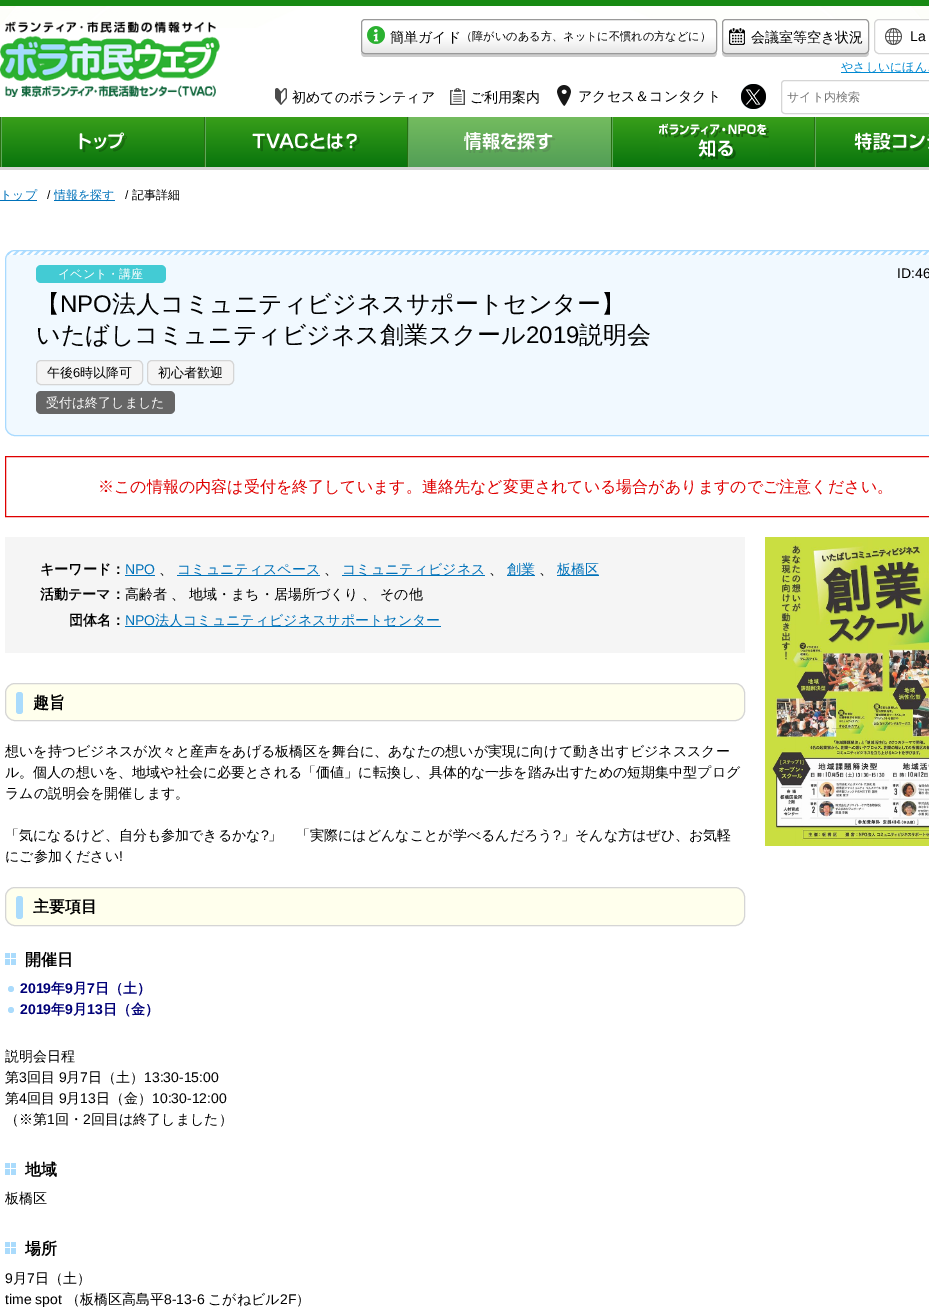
%!PS
<< /PageSize [929 1307] >> setpagedevice
/rgb { 3 { 255 div 3 1 roll } repeat setrgbcolor } def
/font { [ exch dup neg 0 0 3 -1 roll 0 0 ] selectfont } def
/text { moveto show } def
/circle { newpath 0 360 arc closepath } def
/roundrect { 5 dict begin { /r /h /w /y /x } { exch def } forall
  x r add y moveto x w add y 2 copy h add r arct x w add y h add x 1 index r arct
  x y h add x y r arct x y 2 copy exch w add exch r arct closepath end } def
/picture { 5 dict begin { /h /w /y /x /name } { exch def } forall
  gsave x y translate w h scale
  w h 8 [w 0 0 h 0 0] name (r) file false 3 colorimage grestore end } def
0 1307 translate 1 -1 scale
4 setmiterlimit
255 255 255 rgb
0 0 929 1307 rectfill
(img_01.rgb) 0 6 929 22 picture
23 138 19 rgb
0 0 929 6 rectfill
(img_02.rgb) 0 21 220 76 picture
204 204 204 rgb
361 50 moveto 0 3 0 7 4 7 rcurveto 349 0 rlineto 3 -1 3 -4 3 -7 rcurveto 0 2 -2 4 -4 4 rcurveto -348 0 rlineto -2 0 -4 -2 -4 -4 rcurveto closepath fill
gsave
361 19 356 35 4 roundrect clip newpath
gsave 361 20 moveto 356 0 rlineto 0 33 rlineto -356 0 rlineto closepath clip newpath
<< /ShadingType 2 /ColorSpace /DeviceRGB /Coords [539 20 539 53] /Extend [true true] /Function << /FunctionType 3 /Domain [0 1] /Functions [<< /FunctionType 2 /Domain [0 1] /C0 [1 1 1] /C1 [1 1 1] /N 1 >> << /FunctionType 2 /Domain [0 1] /C0 [1 1 1] /C1 [0.902 0.902 0.902] /N 1 >>] /Bounds [0.5] /Encode [0 1 0 1] >> >> shfill grestore
grestore
153 153 153 rgb
361.5 19.5 355 34 3.5 roundrect stroke
(img_03.rgb) 367 26 18 18 picture
204 204 204 rgb
722 50 moveto 0 3 rlineto 0 2 2 4 4 4 rcurveto 139 0 rlineto 2 0 4 -2 4 -4 rcurveto 0 -3 rlineto -1 3 rlineto -3 1 rlineto -139 0 rlineto -2 0 -4 -2 -4 -4 rcurveto closepath fill
gsave
722 19 147 35 4 roundrect clip newpath
gsave 722 20 moveto 147 0 rlineto 0 33 rlineto -147 0 rlineto closepath clip newpath
<< /ShadingType 2 /ColorSpace /DeviceRGB /Coords [796 20 796 53] /Extend [true true] /Function << /FunctionType 3 /Domain [0 1] /Functions [<< /FunctionType 2 /Domain [0 1] /C0 [1 1 1] /C1 [1 1 1] /N 1 >> << /FunctionType 2 /Domain [0 1] /C0 [1 1 1] /C1 [0.902 0.902 0.902] /N 1 >>] /Bounds [0.5] /Encode [0 1 0 1] >> >> shfill grestore
grestore
153 153 153 rgb
722.5 19.5 146 34 3.5 roundrect stroke
(img_04.rgb) 729 28 16 17 picture
255 255 255 rgb
874 19 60 35 5 roundrect fill
(img_05.rgb) 885 28 17 17 picture
213 213 213 rgb
874.5 19.5 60 34 4.5 roundrect stroke
0 136 209 rgb
841 72 88 1 rectfill
(img_06.rgb) 275 88 12 17 picture
(img_07.rgb) 450 88 15 17 picture
(img_08.rgb) 557 85 14 21 picture
(img_09.rgb) 741 84 25 25 picture
213 213 213 rgb
785 80.5 moveto 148.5 0 rlineto 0 33 rlineto -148.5 0 rlineto -2 0 -3.5 -1.5 -3.5 -3.5 rcurveto 0 -26 rlineto 0 -2 1.5 -3.5 3.5 -3.5 rcurveto closepath stroke
gsave 2 117 moveto 927 0 rlineto 0 50 rlineto -927 0 rlineto closepath clip newpath
<< /ShadingType 2 /ColorSpace /DeviceRGB /Coords [465 117 465 167] /Extend [true true] /Function << /FunctionType 2 /Domain [0 1] /C0 [0.224 0.624 0.102] /C1 [0.031 0.455 0.051] /N 1 >> >> shfill grestore
gsave 409 117 moveto 202 0 rlineto 0 50 rlineto -202 0 rlineto closepath clip newpath
<< /ShadingType 2 /ColorSpace /DeviceRGB /Coords [465 117 465 167] /Extend [true true] /Function << /FunctionType 2 /Domain [0 1] /C0 [0.455 0.737 0.373] /C1 [0.322 0.62 0.337] /N 1 >> >> shfill grestore
40 111 18 rgb
0 117 1 50 rectfill
(img_10.rgb) 79 132 48 21 picture
204 117 1 50 rectfill
94 168 89 rgb
1 117 1 50 rectfill
(img_11.rgb) 252 133 108 19 picture
40 111 18 rgb
407 117 1 50 rectfill
94 168 89 rgb
205 117 1 50 rectfill
(img_12.rgb) 464 132 92 21 picture
40 111 18 rgb
611 117 1 50 rectfill
94 168 89 rgb
408 117 1 50 rectfill
(img_13.rgb) 659 123 110 37 picture
40 111 18 rgb
814 117 1 50 rectfill
94 168 89 rgb
612 117 1 50 rectfill
(img_14.rgb) 854 132 75 21 picture
815 117 1 50 rectfill
213 213 213 rgb
0 167 929 3 rectfill
0 114 186 rgb
0 200 37 1 rectfill
54 200 61 1 rectfill
241 249 255 rgb
5 250 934 186 10 roundrect fill
(img_15.rgb) 6 251 923 4 picture
168 218 255 rgb
5.5 250.5 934 185 9.5 roundrect stroke
67 203 212 rgb
36 265 130 18 5 roundrect fill
245 245 245 rgb
36.5 360.5 106 24 4.5 roundrect gsave fill grestore
213 213 213 rgb
stroke
245 245 245 rgb
147.5 360.5 86 24 4.5 roundrect gsave fill grestore
213 213 213 rgb
stroke
102 102 102 rgb
36 391 139 23 5 roundrect fill
223 0 0 rgb
5.5 456.5 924 60 rectstroke
245 245 245 rgb
5 537 740 116 rectfill
0 114 186 rgb
125 575 30 1 rectfill
177 575 143 1 rectfill
342 575 143 1 rectfill
507 575 28 1 rectfill
557 575 42 1 rectfill
125 626 316 1 rectfill
255 255 237 rgb
5.5 683.5 739 37 9.5 roundrect gsave fill grestore
213 213 213 rgb
stroke
170 219 252 rgb
16 692 7 22 3 roundrect fill
255 255 237 rgb
5.5 887.5 739 38 9.5 roundrect gsave fill grestore
213 213 213 rgb
stroke
170 219 252 rgb
16 896 7 23 3 roundrect fill
(img_16.rgb) 5 953 11 12 picture
11 989 3 circle fill
11 1010 3 circle fill
(img_16.rgb) 5 1163 11 12 picture
(img_16.rgb) 5 1242 11 12 picture
(img_17.rgb) 765 537 164 309 picture
/WenQuanYiZenHei-Medium 14 font
0 0 0 rgb
(簡単ガイド) 390 42 text
/WenQuanYiZenHei-Medium 11.2 font
(（障がいのある方、ネットに不慣れの方などに）) 461 40 text
/WenQuanYiZenHei-Medium 14 font
(会議室等空き状況) 751 42 text
/LiberationSans-Regular 14 font
(La) 910 41 text
/WenQuanYiZenHei-Medium 12 font
0 136 209 rgb
(やさしいにほんご) 841 71 text
/WenQuanYiZenHei-Medium 14 font
0 0 0 rgb
(初めてのボランティア) 292 102 text
(ご利用案内) 470 102 text
(アクセス＆コンタクト) 578 101 text
/WenQuanYiZenHei-Medium 12 font
117 117 117 rgb
(サイト内検索) 787 101 text
0 114 186 rgb
(トップ) 0 199 text
/LiberationSans-Regular 12 font
0 0 0 rgb
(/) 47 199 text
/WenQuanYiZenHei-Medium 12 font
0 114 186 rgb
(情報を探す) 54 199 text
/LiberationSans-Regular 12 font
0 0 0 rgb
(/) 125 199 text
/WenQuanYiZenHei-Medium 12 font
(記事詳細) 132 199 text
255 255 255 rgb
(イベント・講座) 58 278 text
/LiberationSans-Regular 14 font
0 0 0 rgb
(ID:46) 897 278 text
/WenQuanYiZenHei-Medium 24 font
(【) 36 312 text
/LiberationSans-Regular 24 font
(NPO) 60 312 text
/WenQuanYiZenHei-Medium 24 font
(法人コミュニティビジネスサポートセンター】) 112 312 text
(いたばしコミュニティビジネス創業スクール) 36 343 text
/LiberationSans-Regular 24 font
(2019) 526 343 text
/WenQuanYiZenHei-Medium 24 font
(説明会) 579 343 text
/WenQuanYiZenHei-Medium 13 font
(午後) 47 377 text
/LiberationSans-Regular 13 font
(6) 73 377 text
/WenQuanYiZenHei-Medium 13 font
(時以降可) 80 377 text
(初心者歓迎) 158 377 text
255 255 255 rgb
(受付は終了しました) 46 407 text
/WenQuanYiZenHei-Medium 16 font
223 0 0 rgb
(※この情報の内容は受付を終了しています。連絡先など変更されている場合がありますのでご注意ください。) 98 492 text
/WenQuanYiZenHei-Bold 14 font
0 0 0 rgb
(キーワード：) 40 574 text
/LiberationSans-Regular 14 font
0 114 186 rgb
(NPO) 125 574 text
/WenQuanYiZenHei-Medium 14 font
0 0 0 rgb
(、) 159 574 text
0 114 186 rgb
(コミュニティスペース) 177 574 text
0 0 0 rgb
(、) 324 574 text
0 114 186 rgb
(コミュニティビジネス) 342 574 text
0 0 0 rgb
(、) 489 574 text
0 114 186 rgb
(創業) 507 574 text
0 0 0 rgb
(、) 539 574 text
0 114 186 rgb
(板橋区) 557 574 text
/WenQuanYiZenHei-Bold 14 font
0 0 0 rgb
(活動テーマ：) 40 599 text
/WenQuanYiZenHei-Medium 14 font
(高齢者) 125 599 text
(、) 171 599 text
(地域・まち・居場所づくり) 189 599 text
(、) 362 599 text
(その他) 380 599 text
/WenQuanYiZenHei-Bold 14 font
(団体名：) 69 625 text
/LiberationSans-Regular 14 font
0 114 186 rgb
(NPO) 125 625 text
/WenQuanYiZenHei-Medium 14 font
(法人コミュニティビジネスサポートセンター) 155 625 text
/WenQuanYiZenHei-Bold 16 font
0 0 0 rgb
(趣旨) 33 708 text
/WenQuanYiZenHei-Medium 14 font
(想いを持つビジネスが次々と産声をあげる板橋区を舞台に、あなたの想いが実現に向けて動き出すビジネススクー) 5 756 text
(ル。個人の想いを、地域や社会に必要とされる「価値」に転換し、具体的な一歩を踏み出すための短期集中型プログ) 5 777 text
(ラムの説明会を開催します。) 5 798 text
(「気になるけど、自分も参加できるかな) 5 840 text
/LiberationSans-Regular 14 font
(?) 261 840 text
/WenQuanYiZenHei-Medium 14 font
(」　「実際にはどんなことが学べるんだろう) 268 840 text
/LiberationSans-Regular 14 font
(?) 553 840 text
/WenQuanYiZenHei-Medium 14 font
(」そんな方はぜひ、お気軽) 561 840 text
(にご参加ください) 5 861 text
/LiberationSans-Regular 14 font
(!) 119 861 text
/WenQuanYiZenHei-Bold 16 font
(主要項目) 33 912 text
(開催日) 25 965 text
/LiberationSans-Bold 14 font
0 0 120 rgb
(2019) 20 993 text
/WenQuanYiZenHei-Bold 14 font
(年) 51 993 text
/LiberationSans-Bold 14 font
(9) 65 993 text
/WenQuanYiZenHei-Bold 14 font
(月) 73 993 text
/LiberationSans-Bold 14 font
(7) 87 993 text
/WenQuanYiZenHei-Bold 14 font
(日（土）) 95 993 text
/LiberationSans-Bold 14 font
(2019) 20 1014 text
/WenQuanYiZenHei-Bold 14 font
(年) 51 1014 text
/LiberationSans-Bold 14 font
(9) 65 1014 text
/WenQuanYiZenHei-Bold 14 font
(月) 73 1014 text
/LiberationSans-Bold 14 font
(13) 87 1014 text
/WenQuanYiZenHei-Bold 14 font
(日（金）) 103 1014 text
/WenQuanYiZenHei-Medium 14 font
0 0 0 rgb
(説明会日程) 5 1061 text
(第) 5 1082 text
/LiberationSans-Regular 14 font
(3) 19 1082 text
/WenQuanYiZenHei-Medium 14 font
(回目) 27 1082 text
/LiberationSans-Regular 14 font
(9) 59 1082 text
/WenQuanYiZenHei-Medium 14 font
(月) 66 1082 text
/LiberationSans-Regular 14 font
(7) 80 1082 text
/WenQuanYiZenHei-Medium 14 font
(日（土）) 88 1082 text
/LiberationSans-Regular 14 font
(13:30-15:00) 144 1082 text
/WenQuanYiZenHei-Medium 14 font
(第) 5 1103 text
/LiberationSans-Regular 14 font
(4) 19 1103 text
/WenQuanYiZenHei-Medium 14 font
(回目) 27 1103 text
/LiberationSans-Regular 14 font
(9) 59 1103 text
/WenQuanYiZenHei-Medium 14 font
(月) 66 1103 text
/LiberationSans-Regular 14 font
(13) 80 1103 text
/WenQuanYiZenHei-Medium 14 font
(日（金）) 96 1103 text
/LiberationSans-Regular 14 font
(10:30-12:00) 152 1103 text
/WenQuanYiZenHei-Medium 14 font
(（※第) 5 1124 text
/LiberationSans-Regular 14 font
(1) 47 1124 text
/WenQuanYiZenHei-Medium 14 font
(回・) 55 1124 text
/LiberationSans-Regular 14 font
(2) 83 1124 text
/WenQuanYiZenHei-Medium 14 font
(回目は終了しました）) 91 1124 text
/WenQuanYiZenHei-Bold 16 font
(地域) 25 1175 text
/WenQuanYiZenHei-Medium 14 font
(板橋区) 5 1203 text
/WenQuanYiZenHei-Bold 16 font
(場所) 25 1254 text
/LiberationSans-Regular 14 font
(9) 5 1283 text
/WenQuanYiZenHei-Medium 14 font
(月) 13 1283 text
/LiberationSans-Regular 14 font
(7) 27 1283 text
/WenQuanYiZenHei-Medium 14 font
(日（土）) 35 1283 text
/LiberationSans-Regular 14 font
(time spot) 5 1304 text
/WenQuanYiZenHei-Medium 14 font
(（板橋区高島平) 66 1304 text
/LiberationSans-Regular 14 font
(8-13-6) 164 1304 text
/WenQuanYiZenHei-Medium 14 font
(こがねビル) 208 1304 text
/LiberationSans-Regular 14 font
(2F) 280 1304 text
/WenQuanYiZenHei-Medium 14 font
(）) 296 1304 text
showpage
